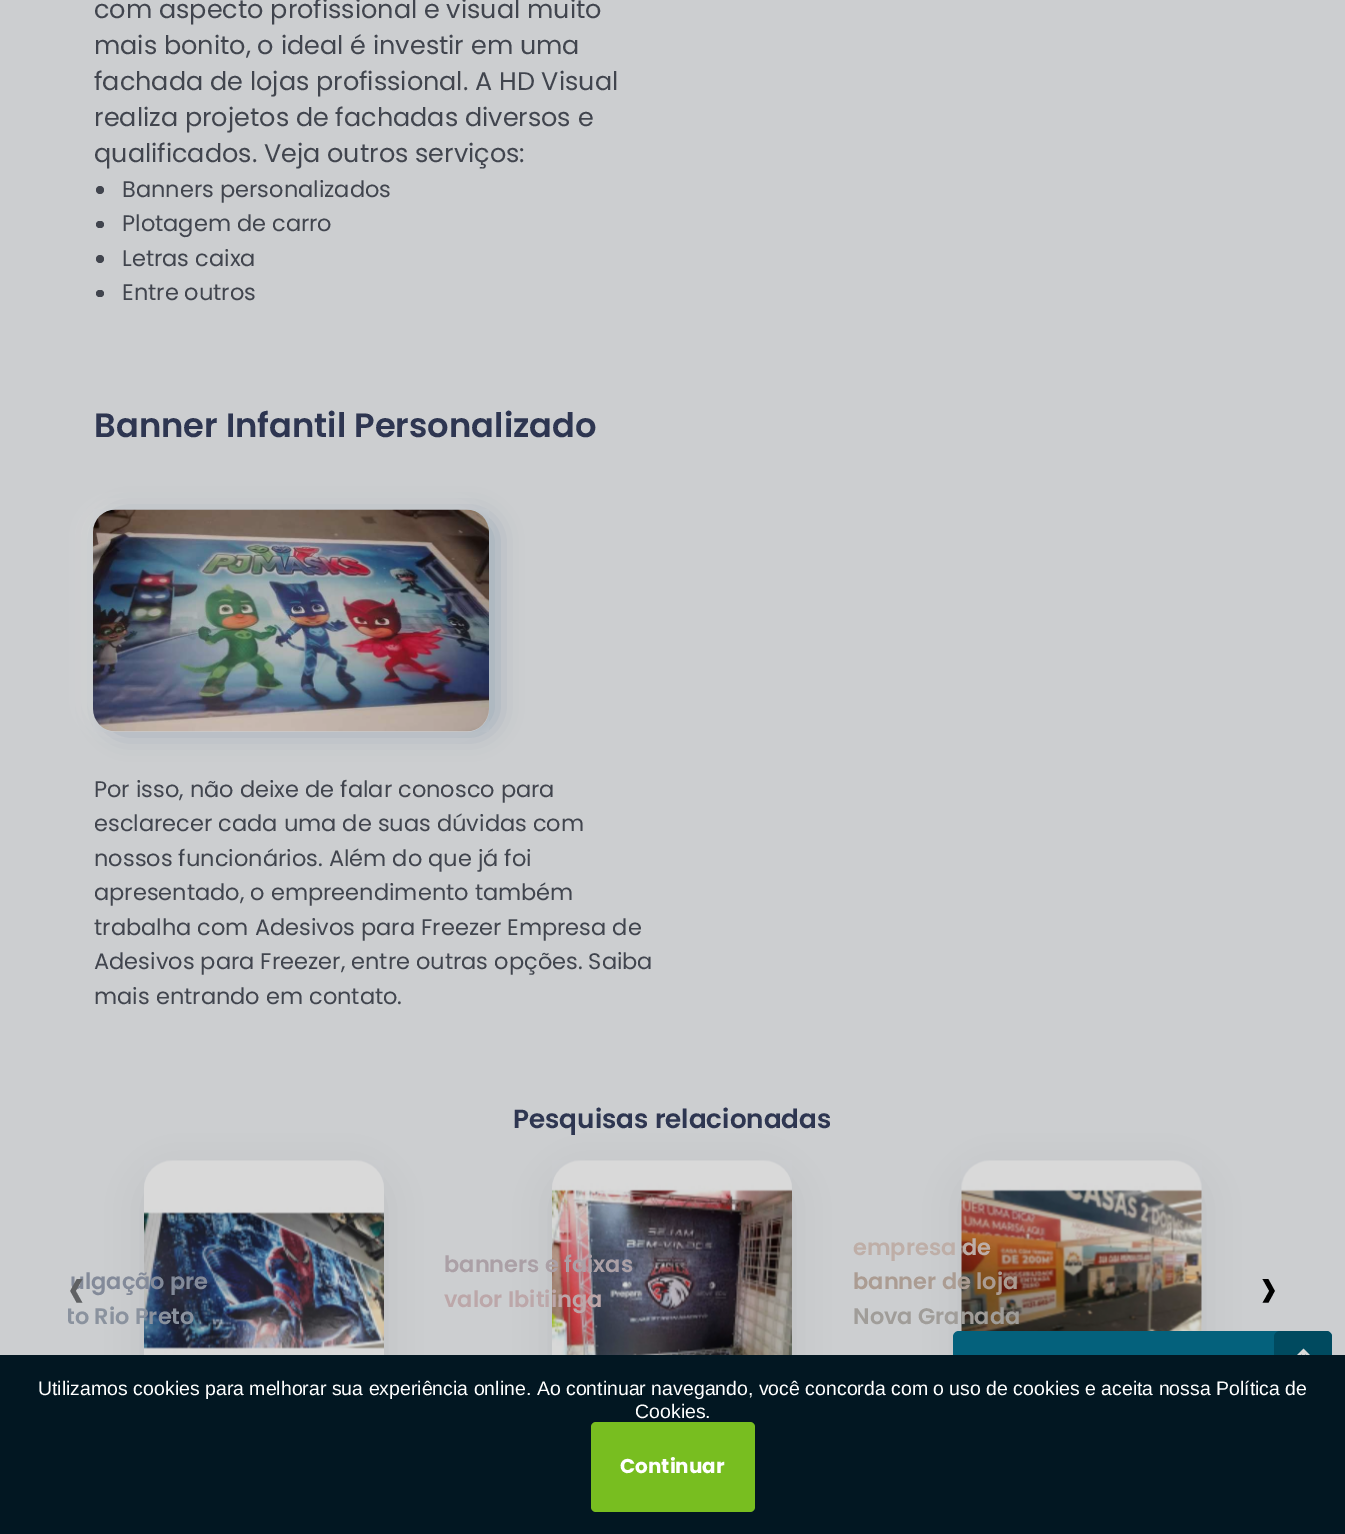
%!PS
<< /PageSize [1345 1534] /PageUsesTransparency true >> setpagedevice
/rgb { 3 { 255 div 3 1 roll } repeat setrgbcolor } def
/font { [ exch dup neg 0 0 3 -1 roll 0 0 ] selectfont } def
/text { moveto show } def
/alpha { dup .setfillconstantalpha .setstrokeconstantalpha } def
/circle { newpath 0 360 arc closepath } def
/roundrect { 5 dict begin { /r /h /w /y /x } { exch def } forall
  x r add y moveto x w add y 2 copy h add r arct x w add y h add x 1 index r arct
  x y h add x y r arct x y 2 copy exch w add exch r arct closepath end } def
/shadow { 12 dict begin { /a /b /q /h /w /y /x } { exch def } forall gsave /was 0 def
  9 -2 -9 { dup b mul 4 div /e exch def 1 sub .425 mul 2.718 exch exp 1 add a .99 .min exch div /now exch def
    1 1 now sub 1 was sub div sub alpha /was now def
    w h .min e 2 mul add 0 gt { x e sub y e sub w e 2 mul add h e 2 mul add
      q e add b .6 mul add w h .min 2 div e add .min 0 .max roundrect fill } if } for grestore end } def
/picture { 5 dict begin { /h /w /y /x /name } { exch def } forall
  gsave x y translate w h scale
  w h 8 [w 0 0 h 0 0] name (r) file false 3 colorimage grestore end } def
0 .pushpdf14devicefilter
0 1534 translate 1 -1 scale
4 setmiterlimit
204 206 208 rgb
0 0 1345 1534 rectfill
65 69 78 rgb
100 190 4 circle fill
96 221 8 7 3.5 roundrect fill
100 259 4 circle fill
96 290 8 7 3.5 roundrect fill
217 217 217 rgb
84 507 396 222 23 12 0.8 shadow
116 140 162 rgb
102 513 396 222 23 12 0.48 shadow
(img_01.rgb) 93 509 396 223 picture
127 133 140 rgb
144 1173 240 240 29 18 0.2 shadow
(img_02.rgb) 144 1160 240 195 picture
552 1173 240 240 29 18 0.2 shadow
(img_03.rgb) 552 1160 240 195 picture
962 1173 240 240 29 18 0.2 shadow
(img_04.rgb) 961 1160 241 171 picture
4 97 124 rgb
953 1331 379 69 6 roundrect fill
0 74 95 rgb
1274 1331 58 69 6 roundrect fill
(img_05.rgb) 1297 1348 13 7 picture
2 23 34 rgb
0 1355 1345 179 rectfill
120 190 32 rgb
591 1422 164 90 5 roundrect fill
/Poppins-Regular 25.5 font
65 69 78 rgb
(com aspecto profissional e visual muito) 94 18 text
(mais bonito, o ideal é investir em uma) 94 54 text
(fachada de lojas profissional. A HD Visual) 94 90 text
(realiza projetos de fachadas diversos e) 94 126 text
(qualificados. Veja outros serviços:) 94 162 text
/Poppins-Regular 22.5 font
(Banners personalizados) 122 197 text
(Plotagem de carro) 122 231 text
(Letras caixa) 122 266 text
(Entre outros) 122 300 text
/Poppins-SemiBold 33.75 font
46 54 81 rgb
(Banner Infantil Personalizado) 94 437 text
/Poppins-Regular 22.5 font
65 69 78 rgb
(Por isso, não deixe de falar conosco para) 94 797 text
(esclarecer cada uma de suas dúvidas com) 94 831 text
(nossos funcionários. Além do que já foi) 94 866 text
(apresentado, o empreendimento também) 94 900 text
(trabalha com Adesivos para Freezer Empresa de) 94 935 text
(Adesivos para Freezer, entre outras opções. Saiba) 94 969 text
(mais entrando em contato.) 94 1004 text
/Poppins-SemiBold 26.25 font
46 54 81 rgb
(Pesquisas relacionadas) 513 1128 text
/Poppins-SemiBold 22.5 font
131 138 153 rgb
(ulgação pre) 70 1289 text
gsave
68 1139 1192 285 rectclip
138 146 158 rgb
(to Rio Preto) 66 1324 text
grestore
171 160 166 rgb
(banners e faixas) 444 1272 text
188 167 169 rgb
(valor Ibitiinga) 444 1307 text
190 174 167 rgb
(empresa de) 853 1255 text
171 156 146 rgb
(banner de loja) 853 1289 text
160 157 153 rgb
(Nova Granada) 853 1324 text
/Poppins-Regular 68 font
95 97 99 rgb
(‹) 67 1311 text
0 0 0 rgb
(›) 1259 1311 text
/LiberationSans-Regular 19.5 font
255 255 255 rgb
(Utilizamos cookies para melhorar sua experiência online. Ao continuar navegando, você concorda com o uso de cookies e aceita nossa Política de) 38 1395 text
(Cookies.) 635 1418 text
/Poppins-Bold 20 font
(Continuar) 620 1473 text
.poppdf14devicefilter showpage
